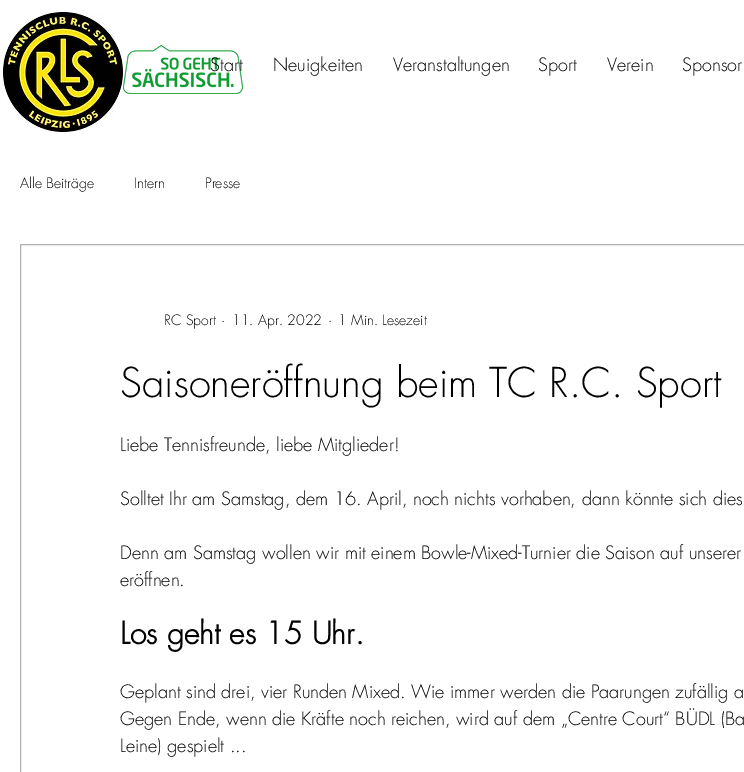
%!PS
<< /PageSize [744 772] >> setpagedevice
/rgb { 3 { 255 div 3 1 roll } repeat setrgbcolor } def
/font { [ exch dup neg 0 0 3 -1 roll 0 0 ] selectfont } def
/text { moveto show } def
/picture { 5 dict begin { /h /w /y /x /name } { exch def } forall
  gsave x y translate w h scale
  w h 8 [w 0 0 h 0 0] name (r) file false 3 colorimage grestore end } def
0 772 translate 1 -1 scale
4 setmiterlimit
255 255 255 rgb
0 0 744 772 rectfill
(img_01.rgb) 3 12 120 120 picture
(img_02.rgb) 123 45 120 49 picture
179 179 179 rgb
20.5 244.5 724 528 rectstroke
/futura-Light 18 font
0 0 0 rgb
(Start) 210 71 text
(Neuigkeiten) 273 71 text
(Veranstaltungen) 393 71 text
(Sport) 538 71 text
(Verein) 607 71 text
(Sponsor) 682 71 text
/futura-Light 14 font
(Alle Beiträge) 20 188 text
(Intern) 134 188 text
(Presse) 205 188 text
(RC Sport) 164 325 text
(·) 221 325 text
(11. Apr. 2022) 232 325 text
(·) 328 325 text
(1 Min. Lesezeit) 338 325 text
/futura-Light 40 font
(Saisoneröffnung beim TC R.C. Sport) 120 397 text
/futura-Light 18 font
(Liebe Tennisfreunde, liebe Mitglieder!) 120 451 text
(Solltet Ihr am Samstag, dem 16. April, noch nichts vorhaben, dann könnte sich dies) 120 505 text
(Denn am Samstag wollen wir mit einem Bowle-Mixed-Turnier die Saison auf unserer) 120 559 text
(eröffnen.) 120 586 text
/futura-Bold 30 font
(Los geht es 15 Uhr.) 120 644 text
/futura-Light 18 font
(Geplant sind drei, vier Runden Mixed. Wie immer werden die Paarungen zufällig a) 120 698 text
(Gegen Ende, wenn die Kräfte noch reichen, wird auf dem „Centre Court“ BÜDL \(Ba) 120 725 text
(Leine\) gespielt ...) 120 752 text
showpage
